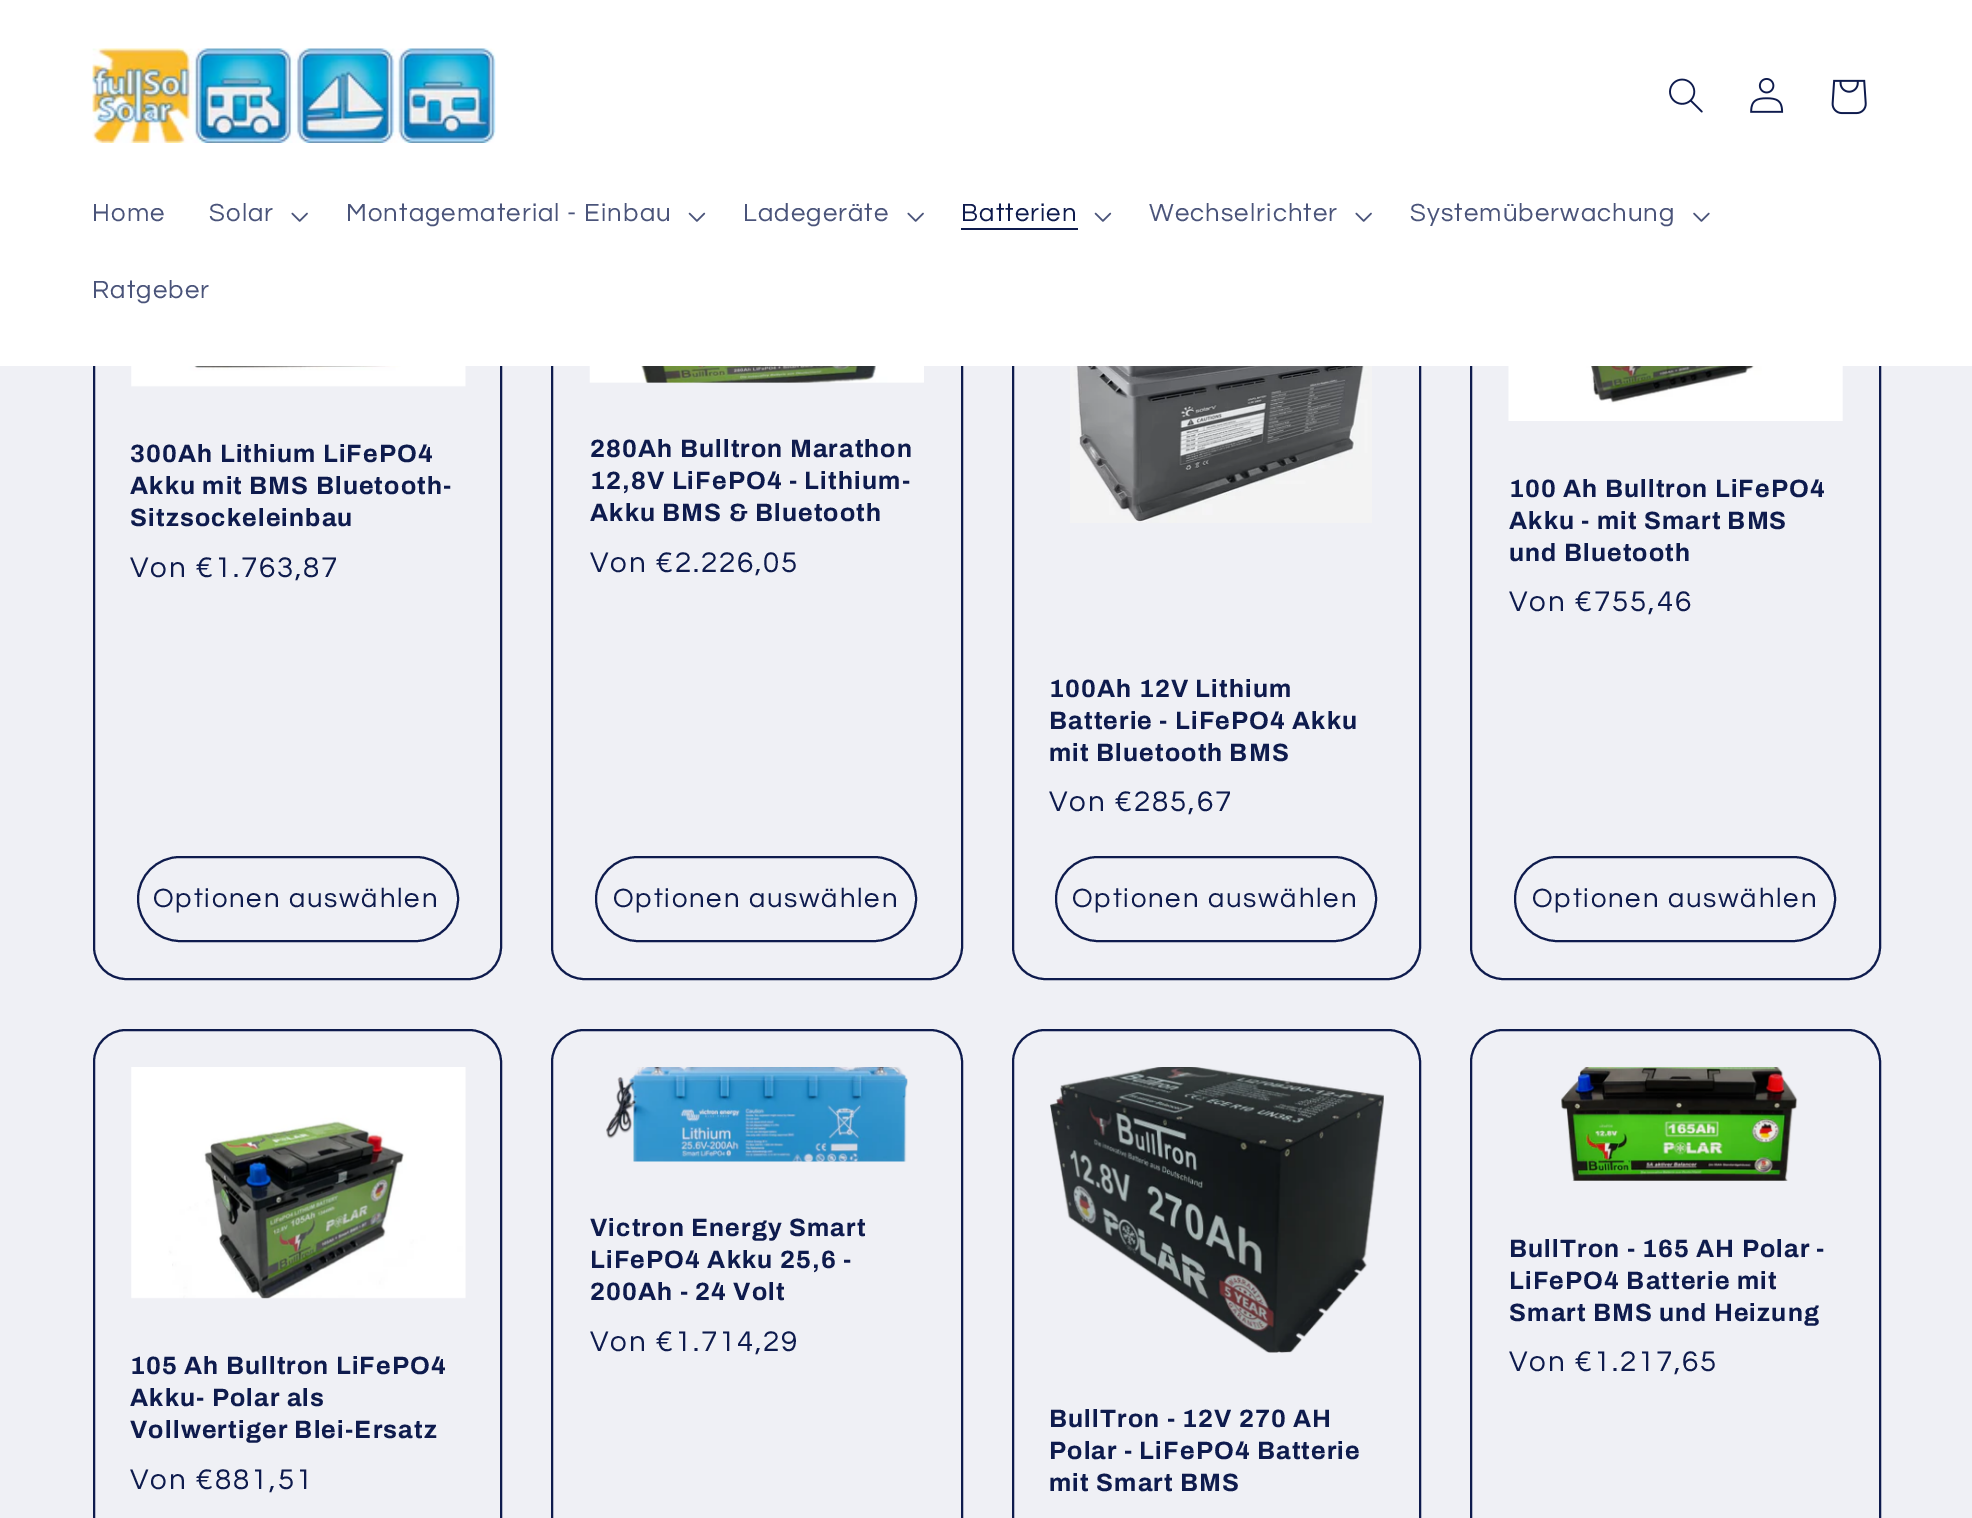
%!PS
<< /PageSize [1972 1518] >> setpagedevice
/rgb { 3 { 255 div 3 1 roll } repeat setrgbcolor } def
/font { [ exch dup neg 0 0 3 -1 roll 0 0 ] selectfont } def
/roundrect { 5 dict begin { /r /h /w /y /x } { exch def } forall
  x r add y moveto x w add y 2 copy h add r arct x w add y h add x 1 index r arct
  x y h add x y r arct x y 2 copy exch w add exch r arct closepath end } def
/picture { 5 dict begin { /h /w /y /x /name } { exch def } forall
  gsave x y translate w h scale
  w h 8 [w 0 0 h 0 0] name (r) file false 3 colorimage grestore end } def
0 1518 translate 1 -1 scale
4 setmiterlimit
239 240 245 rgb
0 0 1972 1518 rectfill
14 27 77 rgb
2 setlinewidth
94 153 407 826 32 roundrect stroke
552 153 410 826 32 roundrect stroke
1013 153 407 826 32 roundrect stroke
1471 153 409 826 32 roundrect stroke
255 255 255 rgb
0 0 1972 366 rectfill
(img_01.rgb) 92 48 404 95 picture
(img_02.rgb) 1669 78 34 35 picture
(img_03.rgb) 1750 78 34 35 picture
(img_04.rgb) 1831 79 36 36 picture
(img_05.rgb) 291 212 17 10 picture
(img_06.rgb) 688 212 18 10 picture
(img_05.rgb) 907 212 17 10 picture
14 27 77 rgb
961 228 117 2 rectfill
(img_06.rgb) 1094 212 18 10 picture
(img_05.rgb) 1355 212 17 10 picture
(img_07.rgb) 1693 212 17 10 picture
(img_08.rgb) 131 366 335 21 picture
138 857 320 84 42 roundrect stroke
(img_09.rgb) 589 366 335 17 picture
596 857 320 84 42 roundrect stroke
(img_10.rgb) 1070 366 302 157 picture
1056 857 320 84 42 roundrect stroke
(img_11.rgb) 1508 366 335 55 picture
1515 857 320 84 42 roundrect stroke
552 1030 410 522 32 roundrect stroke
(img_12.rgb) 606 1067 302 95 picture
1471 1030 409 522 32 roundrect stroke
(img_13.rgb) 1561 1067 237 114 picture
94 1030 407 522 32 roundrect stroke
(img_14.rgb) 131 1067 335 232 picture
1013 1030 407 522 32 roundrect stroke
(img_15.rgb) 1050 1067 334 286 picture
/Questrial-Regular 25.75 font
74 84 122 rgb
92 221 moveto 1.1 0 (Home) ashow
209 221 moveto 1.1 0 (Solar) ashow
346 221 moveto 1.1 0 (Montagematerial - Einbau) ashow
743 221 moveto 1.1 0 (Ladegeräte) ashow
14 27 77 rgb
961 221 moveto 1.1 0 (Batterien) ashow
74 84 122 rgb
1149 221 moveto 1.1 0 (Wechselrichter) ashow
1410 221 moveto 1.1 0 (Systemüberwachung) ashow
92 298 moveto 1.1 0 (Ratgeber) ashow
/Archivo-Bold 25 font
14 27 77 rgb
130 462 moveto 1.15 0 (300Ah Lithium LiFePO4) ashow
130 494 moveto 1.15 0 (Akku mit BMS Bluetooth-) ashow
130 526 moveto 1.15 0 (Sitzsockeleinbau) ashow
/Questrial-Regular 29.5 font
130 577 moveto 1.8 0 (Von €1.763,87) ashow
/Questrial-Regular 27.5 font
153 907 moveto 1.8 0 (Optionen auswählen) ashow
/Archivo-Bold 25 font
590 457 moveto 1.15 0 (280Ah Bulltron Marathon) ashow
590 489 moveto 1.15 0 (12,8V LiFePO4 - Lithium-) ashow
590 521 moveto 1.15 0 (Akku BMS & Bluetooth) ashow
/Questrial-Regular 29.5 font
590 572 moveto 1.8 0 (Von €2.226,05) ashow
/Questrial-Regular 27.5 font
613 907 moveto 1.8 0 (Optionen auswählen) ashow
/Archivo-Bold 25 font
1049 697 moveto 1.15 0 (100Ah 12V Lithium) ashow
1049 729 moveto 1.15 0 (Batterie - LiFePO4 Akku) ashow
1049 761 moveto 1.15 0 (mit Bluetooth BMS) ashow
/Questrial-Regular 29.5 font
1049 811 moveto 1.8 0 (Von €285,67) ashow
/Questrial-Regular 27.5 font
1072 907 moveto 1.8 0 (Optionen auswählen) ashow
/Archivo-Bold 25 font
1509 497 moveto 1.15 0 (100 Ah Bulltron LiFePO4) ashow
1509 529 moveto 1.15 0 (Akku - mit Smart BMS) ashow
1509 561 moveto 1.15 0 (und Bluetooth) ashow
/Questrial-Regular 29.5 font
1509 611 moveto 1.8 0 (Von €755,46) ashow
/Questrial-Regular 27.5 font
1532 907 moveto 1.8 0 (Optionen auswählen) ashow
/Archivo-Bold 25 font
590 1236 moveto 1.15 0 (Victron Energy Smart) ashow
590 1268 moveto 1.15 0 (LiFePO4 Akku 25,6 -) ashow
590 1300 moveto 1.15 0 (200Ah - 24 Volt) ashow
/Questrial-Regular 29.5 font
590 1351 moveto 1.8 0 (Von €1.714,29) ashow
/Archivo-Bold 25 font
1509 1257 moveto 1.15 0 (BullTron - 165 AH Polar -) ashow
1509 1289 moveto 1.15 0 (LiFePO4 Batterie mit) ashow
1509 1321 moveto 1.15 0 (Smart BMS und Heizung) ashow
/Questrial-Regular 29.5 font
1509 1371 moveto 1.8 0 (Von €1.217,65) ashow
/Archivo-Bold 25 font
130 1374 moveto 1.15 0 (105 Ah Bulltron LiFePO4) ashow
130 1406 moveto 1.15 0 (Akku- Polar als) ashow
130 1438 moveto 1.15 0 (Vollwertiger Blei-Ersatz) ashow
/Questrial-Regular 29.5 font
130 1489 moveto 1.8 0 (Von €881,51) ashow
/Archivo-Bold 25 font
1049 1427 moveto 1.15 0 (BullTron - 12V 270 AH) ashow
1049 1459 moveto 1.15 0 (Polar - LiFePO4 Batterie) ashow
1049 1491 moveto 1.15 0 (mit Smart BMS) ashow
showpage
